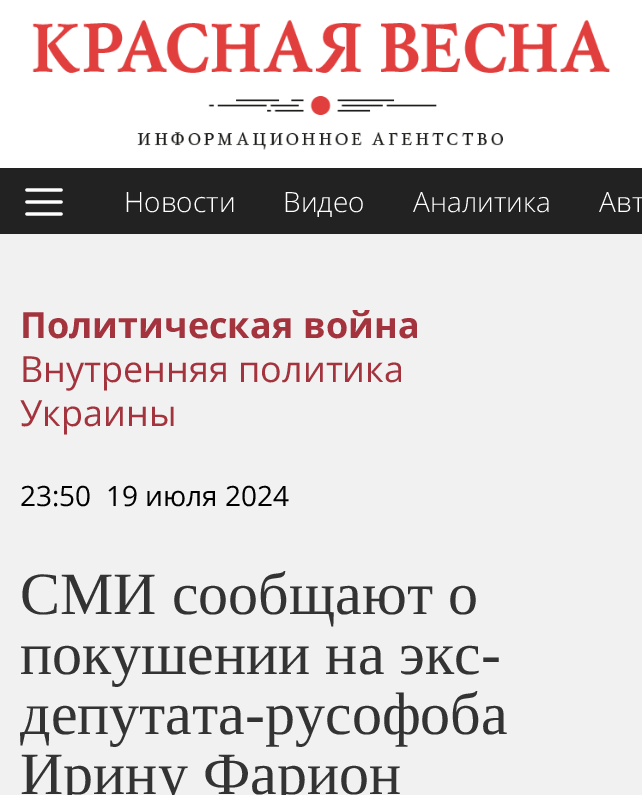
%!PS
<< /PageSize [642 795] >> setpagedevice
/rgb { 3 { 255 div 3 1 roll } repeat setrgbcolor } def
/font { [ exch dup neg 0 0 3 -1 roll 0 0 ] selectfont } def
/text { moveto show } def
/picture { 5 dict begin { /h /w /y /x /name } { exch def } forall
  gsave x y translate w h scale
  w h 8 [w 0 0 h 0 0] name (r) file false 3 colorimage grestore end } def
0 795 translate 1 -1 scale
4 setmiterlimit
241 241 241 rgb
0 0 642 795 rectfill
255 255 255 rgb
0 0 642 168 rectfill
(img_01.rgb) 32 20 578 130 picture
34 34 34 rgb
0 168 642 66 rectfill
(img_02.rgb) 25 188 38 28 picture
/OpenSans-Light 28 font
255 255 255 rgb
(Новости) 124 212 text
(Видео) 283 212 text
(Аналитика) 413 212 text
(Авт) 599 212 text
/OpenSans-Bold 36 font
163 51 61 rgb
20 338 moveto 1 0 32 (Политическая война) widthshow
/OpenSans-Regular 36 font
(Внутренняя политика) 20 382 text
(Украины) 20 426 text
/OpenSans-Regular 28 font
0 0 0 rgb
(23:50  19 июля 2024) 20 506 text
/LiberationSerif-Regular 60 font
51 51 51 rgb
(СМИ сообщают о) 20 614 text
(покушении на экс-) 20 674 text
(депутата-русофоба) 20 734 text
(Ирину Фарион) 20 794 text
showpage
